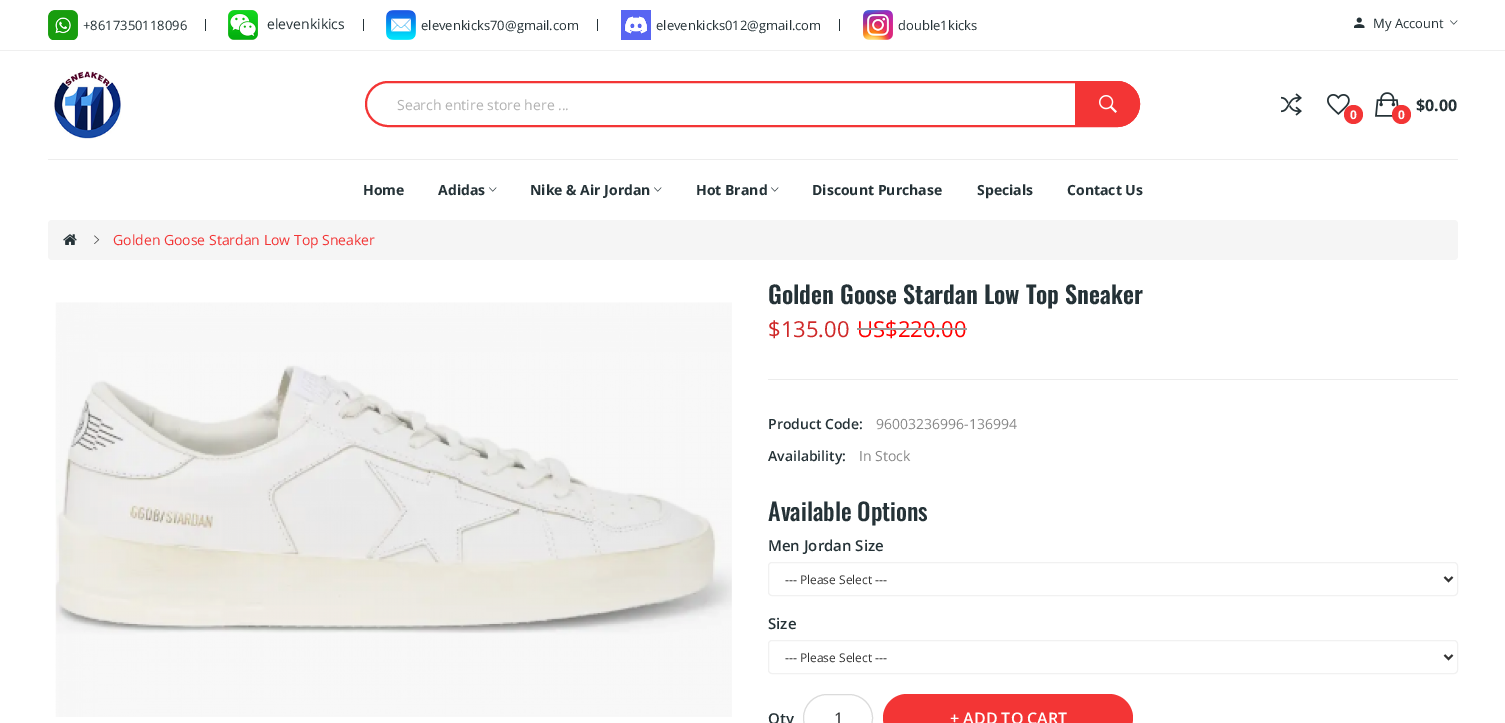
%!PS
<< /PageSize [1505 723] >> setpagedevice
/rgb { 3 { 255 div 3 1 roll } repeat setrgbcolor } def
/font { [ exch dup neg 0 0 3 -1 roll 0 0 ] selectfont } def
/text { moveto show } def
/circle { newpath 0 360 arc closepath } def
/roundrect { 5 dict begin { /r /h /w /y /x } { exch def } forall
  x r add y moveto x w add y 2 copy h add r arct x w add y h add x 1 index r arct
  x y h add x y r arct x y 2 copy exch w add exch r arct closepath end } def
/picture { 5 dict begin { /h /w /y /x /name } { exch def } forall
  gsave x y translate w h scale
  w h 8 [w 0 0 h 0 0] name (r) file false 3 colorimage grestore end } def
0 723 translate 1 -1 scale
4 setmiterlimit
255 255 255 rgb
0 0 1505 723 rectfill
239 239 239 rgb
0 50 1505 1 rectfill
(img_01.rgb) 48 10 30 30 picture
37 50 55 rgb
205 19 1 12 rectfill
(img_02.rgb) 228 10 30 30 picture
363 19 1 12 rectfill
(img_03.rgb) 386 10 30 30 picture
597 19 1 12 rectfill
(img_04.rgb) 621 10 30 30 picture
839 19 1 12 rectfill
(img_05.rgb) 863 10 30 30 picture
(img_06.rgb) 1354 17 11 11 picture
(img_07.rgb) 1450 20 8 5 picture
(img_08.rgb) 53 71 68 68 picture
243 53 53 rgb
2 setlinewidth
366 82 773 44 22 roundrect stroke
1075 81 moveto 42 0 rlineto 12.5 0 23 10.5 23 23 rcurveto 0 12.5 -10.5 23 -23 23 rcurveto -42 0 rlineto closepath fill
(img_09.rgb) 1099 95 18 18 picture
(img_10.rgb) 1281 93 21 23 picture
(img_11.rgb) 1327 94 23 21 picture
1353.5 114.5 9.5 circle fill
(img_12.rgb) 1375 92 24 25 picture
1401.5 114.5 9.5 circle fill
237 237 237 rgb
48 159 1410 1 rectfill
(img_07.rgb) 489 187 8 5 picture
(img_07.rgb) 654 187 8 5 picture
(img_07.rgb) 771 187 8 5 picture
245 245 245 rgb
48 220 1410 40 4 roundrect fill
(img_13.rgb) 63 234 14 11 picture
(img_14.rgb) 94 235 6 9 picture
(img_15.rgb) 55 302 677 415 picture
236 236 236 rgb
768 379 690 1 rectfill
241 241 241 rgb
1 setlinewidth
768.5 562.5 689 33 3.5 roundrect stroke
51 51 51 rgb
2 setlinewidth
1444.5 577 moveto 4 4 rlineto 4 -4 rlineto stroke
241 241 241 rgb
1 setlinewidth
768.5 640.5 689 33 3.5 roundrect stroke
51 51 51 rgb
2 setlinewidth
1444.5 655 moveto 4 4 rlineto 4 -4 rlineto stroke
219 219 219 rgb
1 setlinewidth
803.5 694.5 69 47 23.5 roundrect stroke
243 53 53 rgb
883 694 250 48 24 roundrect fill
/OpenSans-Regular 13 font
37 50 55 rgb
(+8617350118096) 83 30 text
/OpenSans-Regular 14 font
(elevenkikics) 267 29 text
/OpenSans-Regular 13 font
(elevenkicks70@gmail.com) 421 30 text
(elevenkicks012@gmail.com) 656 30 text
(double1kicks) 898 30 text
(My Account) 1373 28 text
/OpenSans-Regular 14 font
177 177 177 rgb
(Search entire store here ...) 397 110 text
/OpenSans-Bold 12 font
255 255 255 rgb
(0) 1350 119 text
/OpenSans-Bold 16 font
37 50 55 rgb
($0.00) 1416 111 text
/OpenSans-Bold 12 font
255 255 255 rgb
(0) 1398 119 text
/OpenSans-Bold 14 font
37 50 55 rgb
(Home) 363 195 text
(Adidas) 438 195 text
(Nike & Air Jordan) 530 195 text
(Hot Brand) 696 195 text
(Discount Purchase) 812 195 text
(Specials) 977 195 text
(Contact Us) 1067 195 text
/OpenSans-Regular 14 font
243 53 53 rgb
(Golden Goose Stardan Low Top Sneaker) 113 245 text
/Oswald-SemiBold 24 font
37 50 55 rgb
(Golden Goose Stardan Low Top Sneaker) 768 304 text
/OpenSans-Regular 22 font
207 41 41 rgb
($135.00) 768 337 text
255 0 0 rgb
(US$220.00) 857 337 text
155 155 155 rgb
857 328 110 2 rectfill
/OpenSans-SemiBold 14 font
37 50 55 rgb
(Product Code:) 768 429 text
/OpenSans-Regular 14 font
136 136 136 rgb
(96003236996-136994) 876 429 text
/OpenSans-SemiBold 14 font
37 50 55 rgb
(Availability:) 768 461 text
/OpenSans-Regular 14 font
136 136 136 rgb
(In Stock) 859 461 text
/Oswald-Medium 24 font
37 50 55 rgb
(Available Options) 768 521 text
/OpenSans-SemiBold 15 font
(Men Jordan Size) 768 551 text
/OpenSans-Regular 12 font
51 51 51 rgb
(--- Please Select ---) 785 584 text
/OpenSans-SemiBold 15 font
37 50 55 rgb
(Size) 768 629 text
/OpenSans-Regular 12 font
51 51 51 rgb
(--- Please Select ---) 785 662 text
/OpenSans-SemiBold 15 font
37 50 55 rgb
(Qty) 768 724 text
/OpenSans-Regular 16 font
43 45 47 rgb
(1) 834 724 text
/OpenSans-SemiBold 16 font
255 255 255 rgb
(+ ADD TO CART) 950 724 text
showpage
